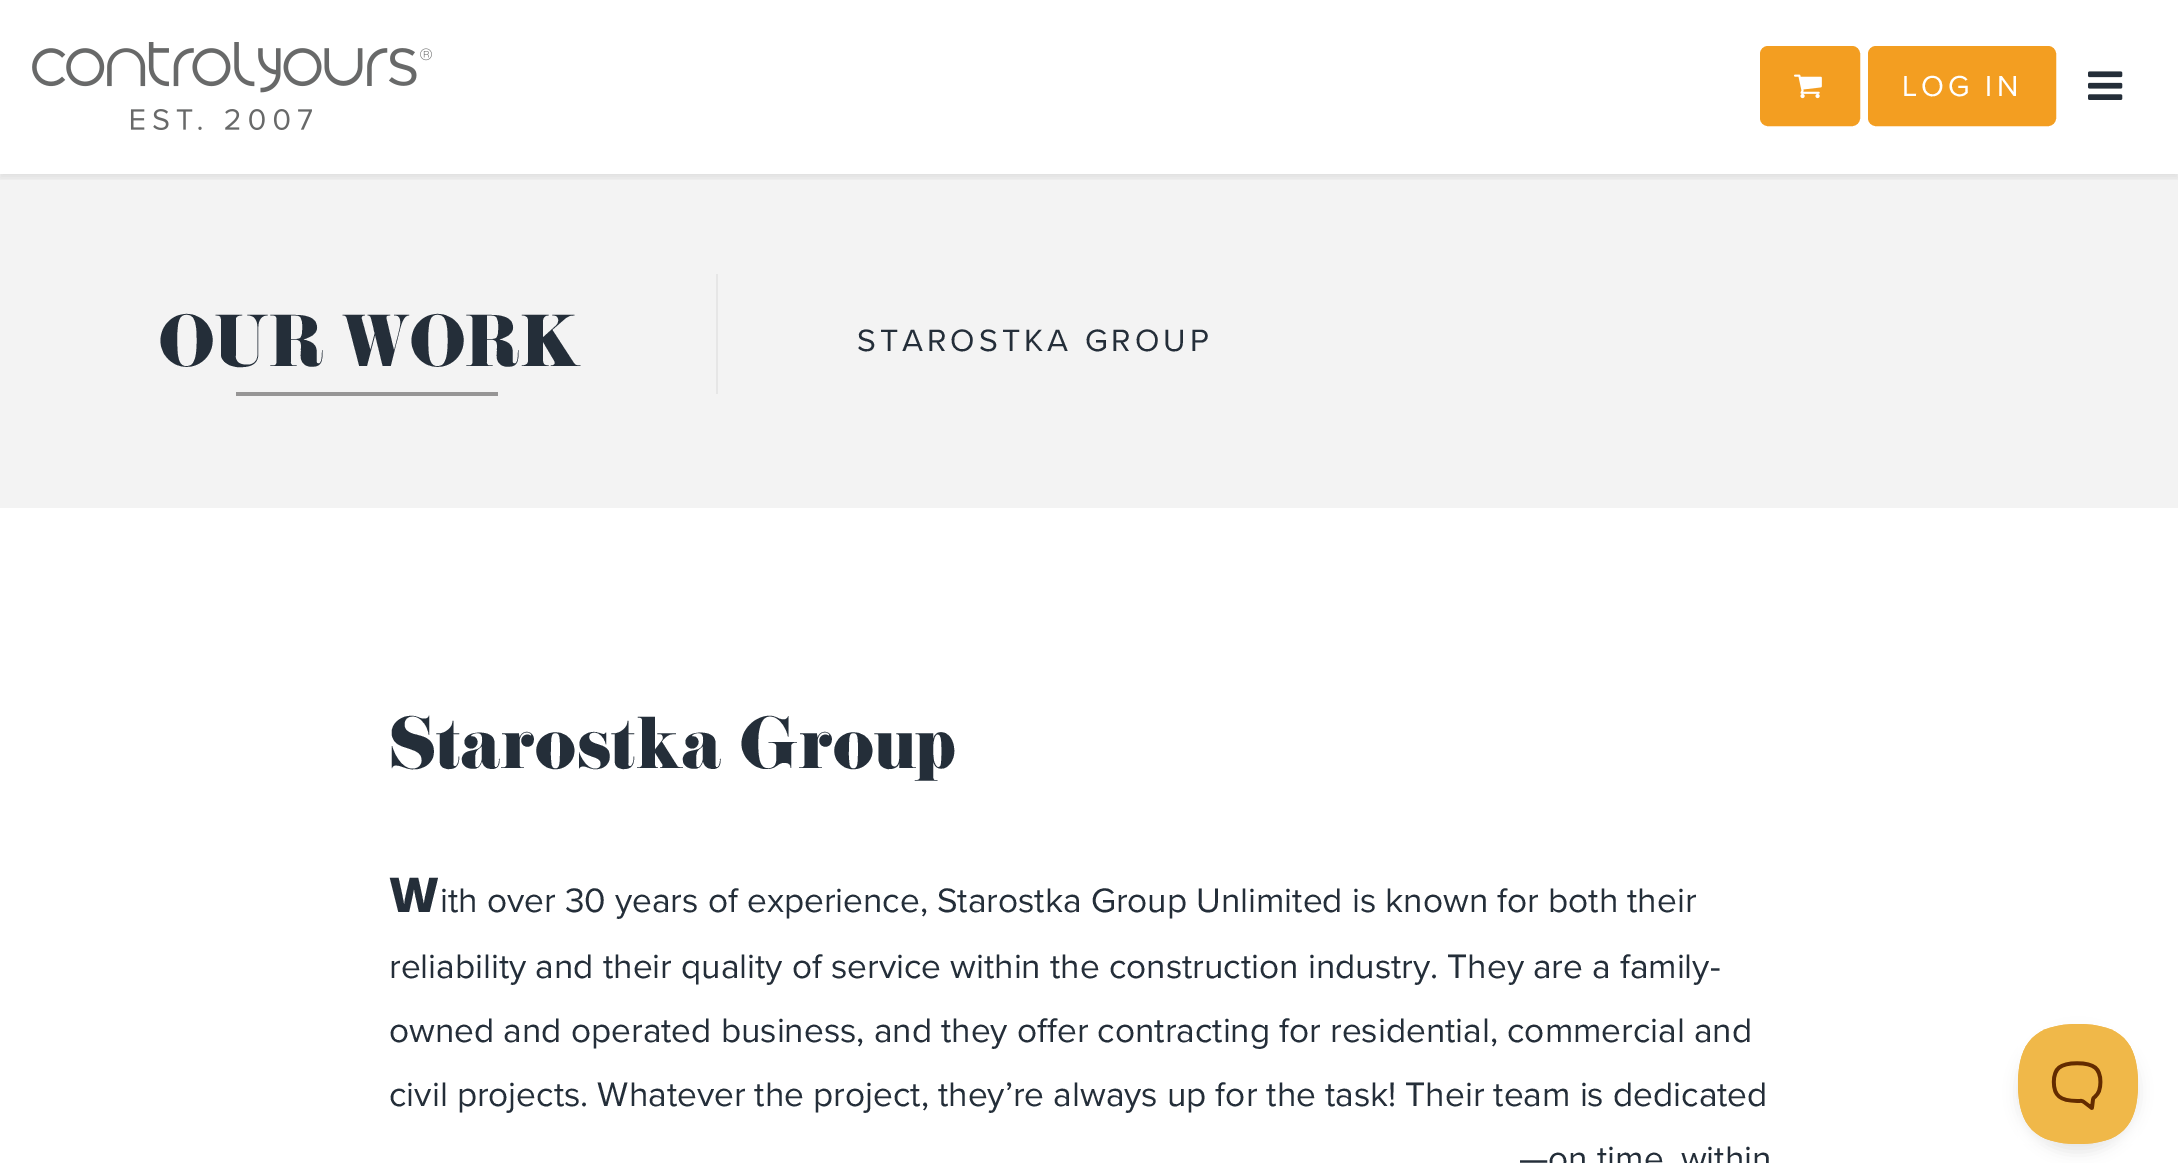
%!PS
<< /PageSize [2178 1163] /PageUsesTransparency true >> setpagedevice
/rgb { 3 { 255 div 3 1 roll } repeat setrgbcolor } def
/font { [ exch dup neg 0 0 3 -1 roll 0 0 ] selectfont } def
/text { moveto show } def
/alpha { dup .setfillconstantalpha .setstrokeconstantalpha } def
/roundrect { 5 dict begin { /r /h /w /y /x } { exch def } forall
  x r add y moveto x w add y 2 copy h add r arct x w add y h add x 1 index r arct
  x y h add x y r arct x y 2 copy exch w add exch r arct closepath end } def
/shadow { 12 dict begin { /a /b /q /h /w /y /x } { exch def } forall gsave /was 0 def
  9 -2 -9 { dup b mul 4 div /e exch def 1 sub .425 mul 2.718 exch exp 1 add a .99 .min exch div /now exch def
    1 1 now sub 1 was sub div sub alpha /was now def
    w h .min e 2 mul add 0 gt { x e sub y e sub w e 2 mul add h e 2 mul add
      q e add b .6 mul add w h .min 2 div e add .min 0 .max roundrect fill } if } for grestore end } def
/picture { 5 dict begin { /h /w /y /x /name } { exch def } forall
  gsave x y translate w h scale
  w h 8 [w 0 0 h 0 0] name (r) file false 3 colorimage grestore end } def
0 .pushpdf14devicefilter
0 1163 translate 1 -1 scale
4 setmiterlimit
255 255 255 rgb
0 0 2178 1163 rectfill
243 243 243 rgb
0 174 2178 334 rectfill
gsave
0 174 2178 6 rectclip
0 0 0 rgb
0 4 2178 174 0 4 0.07 shadow
grestore
(img_01.rgb) 32 42 400 88 picture
243 158 33 rgb
1761 47 98 78 7 roundrect gsave fill grestore
2 setlinewidth
stroke
(img_02.rgb) 1794 74 28 25 picture
1869 47 186 78 7 roundrect gsave fill grestore
stroke
(img_03.rgb) 2088 71 35 29 picture
150 149 149 rgb
236 392 262 4 rectfill
230 230 230 rgb
716 274 2 120 rectfill
0 0 0 rgb
2018 1032 120 120 60 7 0.1 shadow
(img_04.rgb) 2018 1024 120 120 picture
/ProximaNova-Regular 30 font
255 255 255 rgb
1902 96 moveto 4 0 (LOG IN) ashow
/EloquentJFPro-Regular 64 font
36 46 57 rgb
(OUR WORK) 159 366 text
/ProximaNova-Regular 32 font
857 351 moveto 4 0 (STAROSTKA GROUP) ashow
/EloquentJFPro-Regular 64 font
(Starostka Group) 389 768 text
/NotoSans-Black 48 font
(W) 389 912 text
/ProximaNova-Regular 35.2 font
(ith over 30 years of experience, Starostka Group Unlimited is known for both their) 440 912 text
(reliability and their quality of service within the construction industry. They are a family-) 389 978 text
(owned and operated business, and they offer contracting for residential, commercial and) 389 1042 text
(civil projects. Whatever the project, they’re always up for the task! Their team is dedicated) 389 1106 text
(—on time, within) 1519 1170 text
.poppdf14devicefilter showpage
